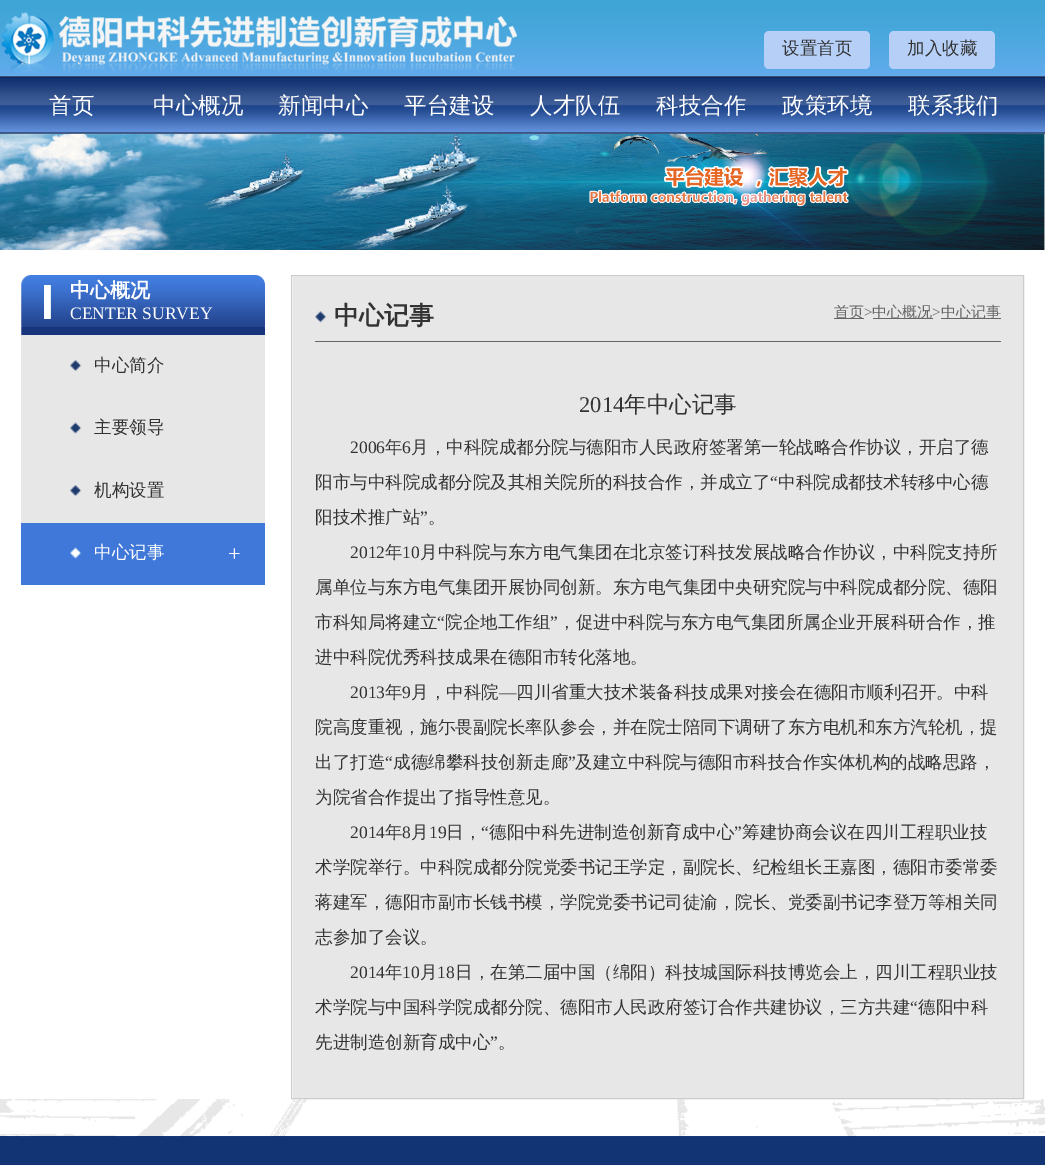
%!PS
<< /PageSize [1045 1165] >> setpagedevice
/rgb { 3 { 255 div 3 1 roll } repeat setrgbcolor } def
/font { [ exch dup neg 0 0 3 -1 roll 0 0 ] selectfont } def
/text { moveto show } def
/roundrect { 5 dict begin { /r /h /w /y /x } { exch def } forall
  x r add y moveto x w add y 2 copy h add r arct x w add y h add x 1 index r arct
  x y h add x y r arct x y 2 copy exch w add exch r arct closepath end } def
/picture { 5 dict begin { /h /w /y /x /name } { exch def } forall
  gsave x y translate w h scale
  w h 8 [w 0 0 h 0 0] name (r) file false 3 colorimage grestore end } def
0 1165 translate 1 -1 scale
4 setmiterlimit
255 255 255 rgb
0 0 1045 1165 rectfill
(img_01.rgb) 0 0 1045 77 picture
(img_02.rgb) 1 12 516 61 picture
182 207 247 rgb
764 31 106 38 5 roundrect fill
889 31 106 38 5 roundrect fill
(img_03.rgb) 0 76 1045 58 picture
(img_04.rgb) 0 133 1045 1 picture
(img_05.rgb) 0 133 1045 117 picture
19 52 116 rgb
0 1136 1045 29 rectfill
(img_06.rgb) 0 1099 1045 38 picture
(img_07.rgb) 21 275 244 60 picture
231 231 231 rgb
21 335 244 188 rectfill
(img_08.rgb) 70 360 12 12 picture
(img_09.rgb) 70 422 12 12 picture
(img_08.rgb) 70 485 12 12 picture
63 120 216 rgb
21 523 244 62 rectfill
(img_10.rgb) 70 547 12 12 picture
204 204 204 rgb
291.5 275.5 732 823 rectstroke
231 231 231 rgb
293 276 730 822 rectfill
102 102 102 rgb
315 341 686 1 rectfill
(img_11.rgb) 315 311 12 12 picture
834 318 30 1 rectfill
873 318 60 1 rectfill
941 318 60 1 rectfill
/WenQuanYiZenHei-Medium 17.5 font
51 51 51 rgb
(设置首页) 782 54 text
(加入收藏) 907 54 text
/WenQuanYiZenHei-Medium 22.5 font
255 255 255 rgb
(首页) 49 113 text
(中心概况) 153 113 text
(新闻中心) 278 113 text
(平台建设) 404 113 text
(人才队伍) 530 113 text
(科技合作) 656 113 text
(政策环境) 782 113 text
(联系我们) 908 113 text
/WenQuanYiZenHei-Bold 20 font
(中心概况) 70 297 text
/LiberationSerif-Regular 17.5 font
(CENTER SURVEY) 70 319 text
/WenQuanYiZenHei-Medium 17.5 font
51 51 51 rgb
(中心简介) 94 371 text
(主要领导) 94 433 text
(机构设置) 94 496 text
255 255 255 rgb
(中心记事) 94 558 text
/LiberationSerif-Regular 22.5 font
(+) 228 561 text
/WenQuanYiZenHei-Bold 25 font
51 51 51 rgb
(中心记事) 334 324 text
/WenQuanYiZenHei-Medium 15 font
102 102 102 rgb
(首页) 834 317 text
/LiberationSerif-Regular 15 font
(>) 864 317 text
/WenQuanYiZenHei-Medium 15 font
(中心概况) 872 317 text
/LiberationSerif-Regular 15 font
(>) 932 317 text
/WenQuanYiZenHei-Medium 15 font
(中心记事) 941 317 text
/LiberationSerif-Regular 22.5 font
51 51 51 rgb
(2014) 579 412 text
/WenQuanYiZenHei-Medium 22.5 font
(年中心记事) 624 412 text
/LiberationSerif-Regular 17.5 font
(2006) 350 453 text
/WenQuanYiZenHei-Medium 17.5 font
(年) 385 453 text
/LiberationSerif-Regular 17.5 font
(6) 402 453 text
/WenQuanYiZenHei-Medium 17.5 font
(月，中科院成都分院与德阳市人民政府签署第一轮战略合作协议，开启了德) 411 453 text
(阳市与中科院成都分院及其相关院所的科技合作，并成立了) 315 488 text
/LiberationSerif-Regular 17.5 font
(“) 770 488 text
/WenQuanYiZenHei-Medium 17.5 font
(中科院成都技术转移中心德) 778 488 text
(阳技术推广站) 315 523 text
/LiberationSerif-Regular 17.5 font
(”) 420 523 text
/WenQuanYiZenHei-Medium 17.5 font
(。) 428 523 text
/LiberationSerif-Regular 17.5 font
(2012) 350 558 text
/WenQuanYiZenHei-Medium 17.5 font
(年) 385 558 text
/LiberationSerif-Regular 17.5 font
(10) 402 558 text
/WenQuanYiZenHei-Medium 17.5 font
(月中科院与东方电气集团在北京签订科技发展战略合作协议，中科院支持所) 420 558 text
(属单位与东方电气集团开展协同创新。东方电气集团中央研究院与中科院成都分院、德阳) 315 593 text
(市科知局将建立) 315 628 text
/LiberationSerif-Regular 17.5 font
(“) 437 628 text
/WenQuanYiZenHei-Medium 17.5 font
(院企地工作组) 445 628 text
/LiberationSerif-Regular 17.5 font
(”) 550 628 text
/WenQuanYiZenHei-Medium 17.5 font
(，促进中科院与东方电气集团所属企业开展科研合作，推) 558 628 text
(进中科院优秀科技成果在德阳市转化落地。) 315 663 text
/LiberationSerif-Regular 17.5 font
(2013) 350 698 text
/WenQuanYiZenHei-Medium 17.5 font
(年) 385 698 text
/LiberationSerif-Regular 17.5 font
(9) 402 698 text
/WenQuanYiZenHei-Medium 17.5 font
(月，中科院) 411 698 text
/LiberationSerif-Regular 17.5 font
(—) 499 698 text
/WenQuanYiZenHei-Medium 17.5 font
(四川省重大技术装备科技成果对接会在德阳市顺利召开。中科) 516 698 text
(院高度重视，施尓畏副院长率队参会，并在院士陪同下调研了东方电机和东方汽轮机，提) 315 733 text
(出了打造) 315 768 text
/LiberationSerif-Regular 17.5 font
(“) 385 768 text
/WenQuanYiZenHei-Medium 17.5 font
(成德绵攀科技创新走廊) 393 768 text
/LiberationSerif-Regular 17.5 font
(”) 568 768 text
/WenQuanYiZenHei-Medium 17.5 font
(及建立中科院与德阳市科技合作实体机构的战略思路，) 575 768 text
(为院省合作提出了指导性意见。) 315 803 text
/LiberationSerif-Regular 17.5 font
(2014) 350 838 text
/WenQuanYiZenHei-Medium 17.5 font
(年) 385 838 text
/LiberationSerif-Regular 17.5 font
(8) 402 838 text
/WenQuanYiZenHei-Medium 17.5 font
(月) 411 838 text
/LiberationSerif-Regular 17.5 font
(19) 429 838 text
/WenQuanYiZenHei-Medium 17.5 font
(日，) 446 838 text
/LiberationSerif-Regular 17.5 font
(“) 481 838 text
/WenQuanYiZenHei-Medium 17.5 font
(德阳中科先进制造创新育成中心) 489 838 text
/LiberationSerif-Regular 17.5 font
(”) 734 838 text
/WenQuanYiZenHei-Medium 17.5 font
(筹建协商会议在四川工程职业技) 742 838 text
(术学院举行。中科院成都分院党委书记王学定，副院长、纪检组长王嘉图，德阳市委常委) 315 873 text
(蒋建军，德阳市副市长钱书模，学院党委书记司徒渝，院长、党委副书记李登万等相关同) 315 908 text
(志参加了会议。) 315 943 text
/LiberationSerif-Regular 17.5 font
(2014) 350 978 text
/WenQuanYiZenHei-Medium 17.5 font
(年) 385 978 text
/LiberationSerif-Regular 17.5 font
(10) 402 978 text
/WenQuanYiZenHei-Medium 17.5 font
(月) 420 978 text
/LiberationSerif-Regular 17.5 font
(18) 437 978 text
/WenQuanYiZenHei-Medium 17.5 font
(日，在第二届中国（绵阳）科技城国际科技博览会上，四川工程职业技) 455 978 text
(术学院与中国科学院成都分院、德阳市人民政府签订合作共建协议，三方共建) 315 1013 text
/LiberationSerif-Regular 17.5 font
(“) 910 1013 text
/WenQuanYiZenHei-Medium 17.5 font
(德阳中科) 918 1013 text
(先进制造创新育成中心) 315 1048 text
/LiberationSerif-Regular 17.5 font
(”) 490 1048 text
/WenQuanYiZenHei-Medium 17.5 font
(。) 498 1048 text
showpage
